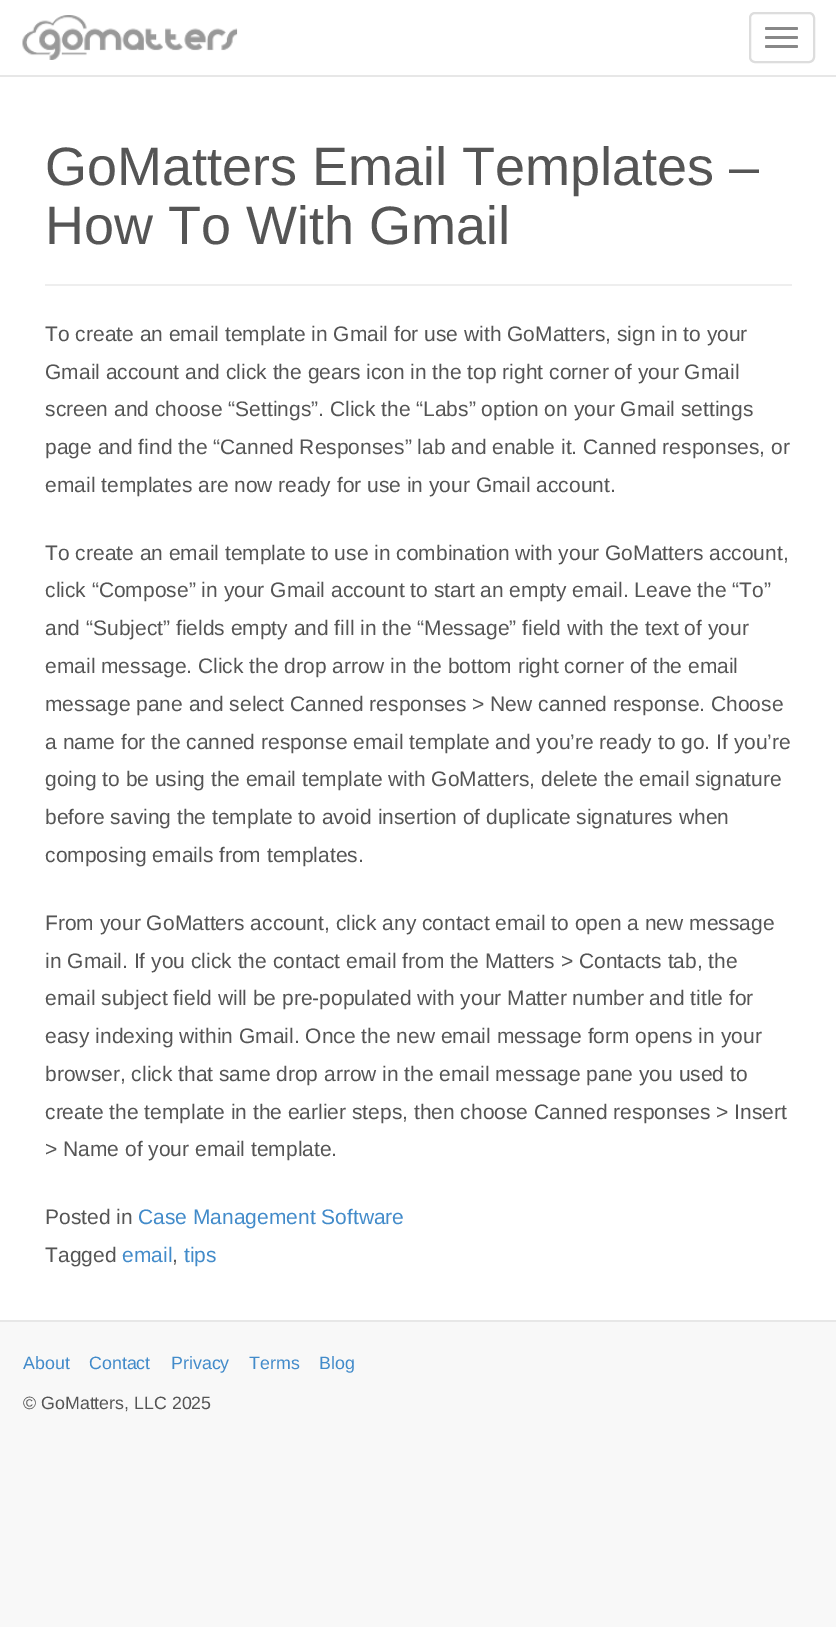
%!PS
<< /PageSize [836 1627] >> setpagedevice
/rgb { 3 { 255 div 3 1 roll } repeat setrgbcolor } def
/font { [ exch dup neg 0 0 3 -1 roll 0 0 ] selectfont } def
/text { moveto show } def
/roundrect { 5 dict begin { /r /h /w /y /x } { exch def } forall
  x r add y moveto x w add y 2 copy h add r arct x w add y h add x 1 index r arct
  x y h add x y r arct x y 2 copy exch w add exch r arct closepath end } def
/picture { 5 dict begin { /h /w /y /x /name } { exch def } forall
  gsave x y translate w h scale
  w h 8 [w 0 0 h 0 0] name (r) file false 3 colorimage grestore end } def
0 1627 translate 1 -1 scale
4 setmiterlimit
248 248 248 rgb
0 0 836 1627 rectfill
255 255 255 rgb
0 0 836 75 rectfill
231 231 231 rgb
0 75 836 2 rectfill
(img_01.rgb) 22 15 216 45 picture
221 221 221 rgb
2 setlinewidth
750 13 64 49 5 roundrect stroke
136 136 136 rgb
765 27 33 3 1.5 roundrect fill
765 36 33 3 1.5 roundrect fill
765 45 33 3 1.5 roundrect fill
255 255 255 rgb
0 77 836 1243 rectfill
231 231 231 rgb
0 1320 836 2 rectfill
238 238 238 rgb
45 284 747 2 rectfill
/LiberationSans-Regular 54 font
85 85 85 rgb
(GoMatters Email Templates –) 45 185 text
(How To With Gmail) 45 244 text
/LiberationSans-Regular 21 font
(To create an email template in Gmail for use with GoMatters, sign in to your) 45 341 text
(Gmail account and click the gears icon in the top right corner of your Gmail) 45 379 text
(screen and choose “Settings”. Click the “Labs” option on your Gmail settings) 45 416 text
(page and find the “Canned Responses” lab and enable it. Canned responses, or) 45 454 text
(email templates are now ready for use in your Gmail account.) 45 492 text
(To create an email template to use in combination with your GoMatters account,) 45 560 text
(click “Compose” in your Gmail account to start an empty email. Leave the “To”) 45 597 text
(and “Subject” fields empty and fill in the “Message” field with the text of your) 45 635 text
(email message. Click the drop arrow in the bottom right corner of the email) 45 673 text
(message pane and select Canned responses > New canned response. Choose) 45 711 text
(a name for the canned response email template and you’re ready to go. If you’re) 45 749 text
(going to be using the email template with GoMatters, delete the email signature) 45 786 text
(before saving the template to avoid insertion of duplicate signatures when) 45 824 text
(composing emails from templates.) 45 862 text
(From your GoMatters account, click any contact email to open a new message) 45 930 text
(in Gmail. If you click the contact email from the Matters > Contacts tab, the) 45 968 text
(email subject field will be pre-populated with your Matter number and title for) 45 1005 text
(easy indexing within Gmail. Once the new email message form opens in your) 45 1043 text
(browser, click that same drop arrow in the email message pane you used to) 45 1081 text
(create the template in the earlier steps, then choose Canned responses > Insert) 45 1119 text
(> Name of your email template.) 45 1156 text
(Posted in) 45 1224 text
66 139 202 rgb
(Case Management Software) 138 1224 text
85 85 85 rgb
(Tagged) 45 1262 text
66 139 202 rgb
(email) 122 1262 text
85 85 85 rgb
(,) 172 1262 text
66 139 202 rgb
(tips) 184 1262 text
/LiberationSans-Regular 17.8 font
(About) 23 1369 text
(Contact) 89 1369 text
(Privacy) 171 1369 text
(Terms) 249 1369 text
(Blog) 319 1369 text
85 85 85 rgb
(© GoMatters, LLC 2025) 23 1409 text
showpage
